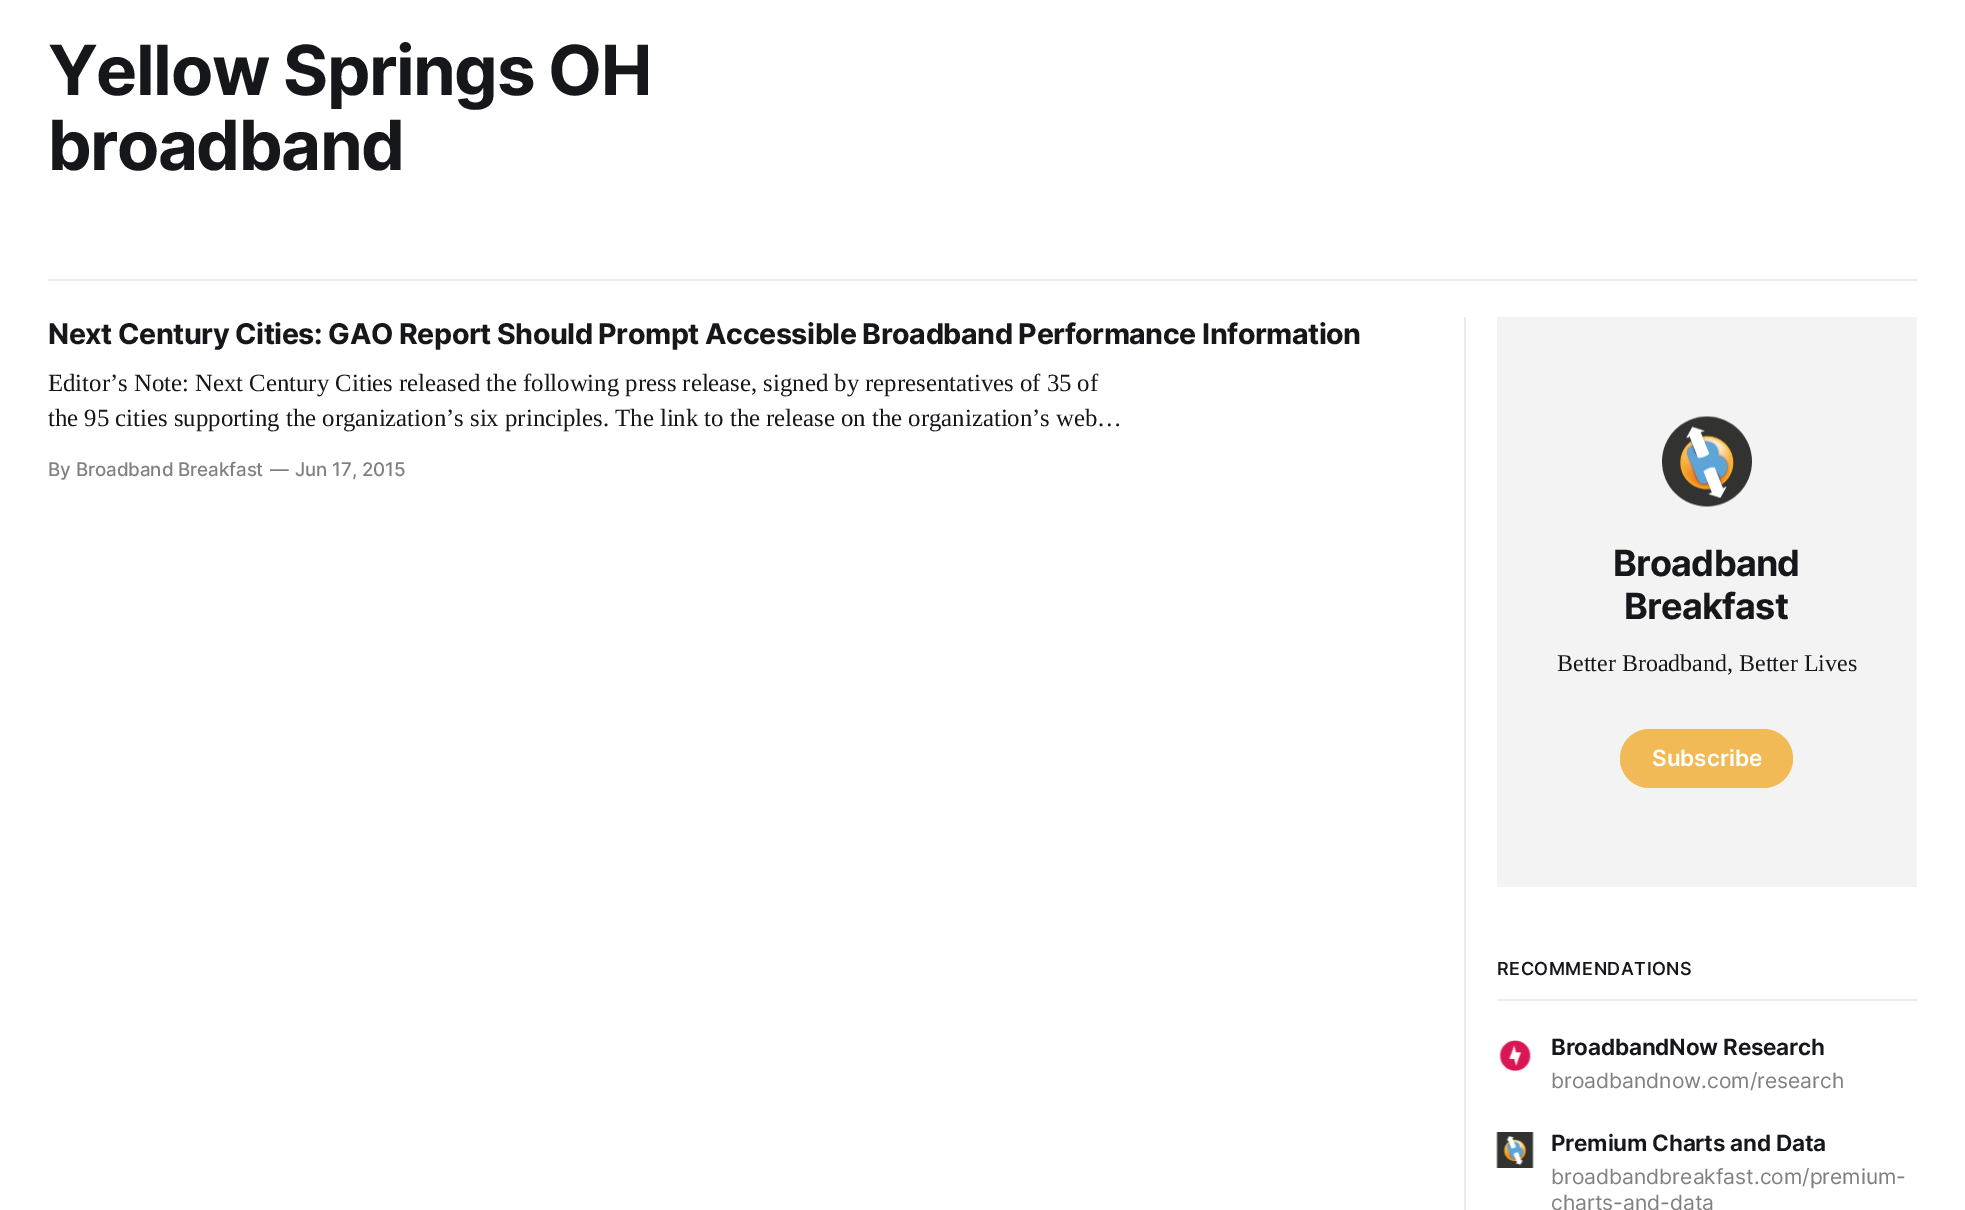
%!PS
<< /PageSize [1965 1210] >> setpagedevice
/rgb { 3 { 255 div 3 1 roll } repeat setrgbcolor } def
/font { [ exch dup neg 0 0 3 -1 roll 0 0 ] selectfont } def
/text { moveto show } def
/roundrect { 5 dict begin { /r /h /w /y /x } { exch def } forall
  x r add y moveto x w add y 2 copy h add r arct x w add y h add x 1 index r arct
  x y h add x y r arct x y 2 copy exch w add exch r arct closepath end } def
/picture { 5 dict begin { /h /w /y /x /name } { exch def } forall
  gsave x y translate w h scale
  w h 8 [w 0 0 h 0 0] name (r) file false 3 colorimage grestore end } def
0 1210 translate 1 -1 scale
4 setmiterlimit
255 255 255 rgb
0 0 1965 1210 rectfill
235 235 235 rgb
48 279 1869 2 rectfill
1464 317 2 893 rectfill
243 243 243 rgb
1497 317 420 570 rectfill
(img_01.rgb) 1662 416 90 91 picture
242 185 87 rgb
1620 729 173 59 29.5 roundrect fill
235 235 235 rgb
1497 999 420 2 rectfill
(img_02.rgb) 1499 1040 32 32 picture
(img_03.rgb) 1496 1132 38 36 picture
/Inter-Bold 69 font
21 23 26 rgb
48 95 moveto -1.5 0 (Yellow Springs OH) ashow
48 170 moveto -1.5 0 (broadband) ashow
/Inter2-Bold 28.5 font
48 344 moveto -0.4 0 (Next Century Cities: GAO Report Should Prompt Accessible Broadband Performance Information) ashow
/LiberationSerif-Regular 24.75 font
(Editor’s Note: Next Century Cities released the following press release, signed by representatives of 35 of) 48 391 text
(the 95 cities supporting the organization’s six principles. The link to the release on the organization’s web…) 48 426 text
/Inter-Medium 18.75 font
128 128 128 rgb
48 476 moveto -0.1 0 (By Broadband Breakfast) ashow
270 476 moveto -0.1 0 (—) ashow
295 476 moveto -0.1 0 (Jun 17, 2015) ashow
/Inter-Bold 36 font
21 23 26 rgb
1613 576 moveto -0.75 0 (Broadband) ashow
1624 619 moveto -0.75 0 (Breakfast) ashow
/LiberationSerif-Regular 24 font
(Better Broadband, Better Lives) 1557 671 text
/Inter-SemiBold 22.5 font
255 255 255 rgb
(Subscribe) 1652 766 text
/Inter2-Medium 18 font
21 23 26 rgb
1497 975 moveto 0.5 0 (RECOMMENDATIONS) ashow
/Inter2-SemiBold 22.5 font
1551 1055 moveto -0.2 0 (BroadbandNow Research) ashow
/Inter-Regular 21 font
128 128 128 rgb
(broadbandnow.com/research) 1551 1088 text
/Inter2-SemiBold 22.5 font
21 23 26 rgb
1551 1151 moveto -0.2 0 (Premium Charts and Data) ashow
/Inter-Regular 21 font
128 128 128 rgb
(broadbandbreakfast.com/premium-) 1551 1184 text
(charts-and-data) 1551 1210 text
showpage
